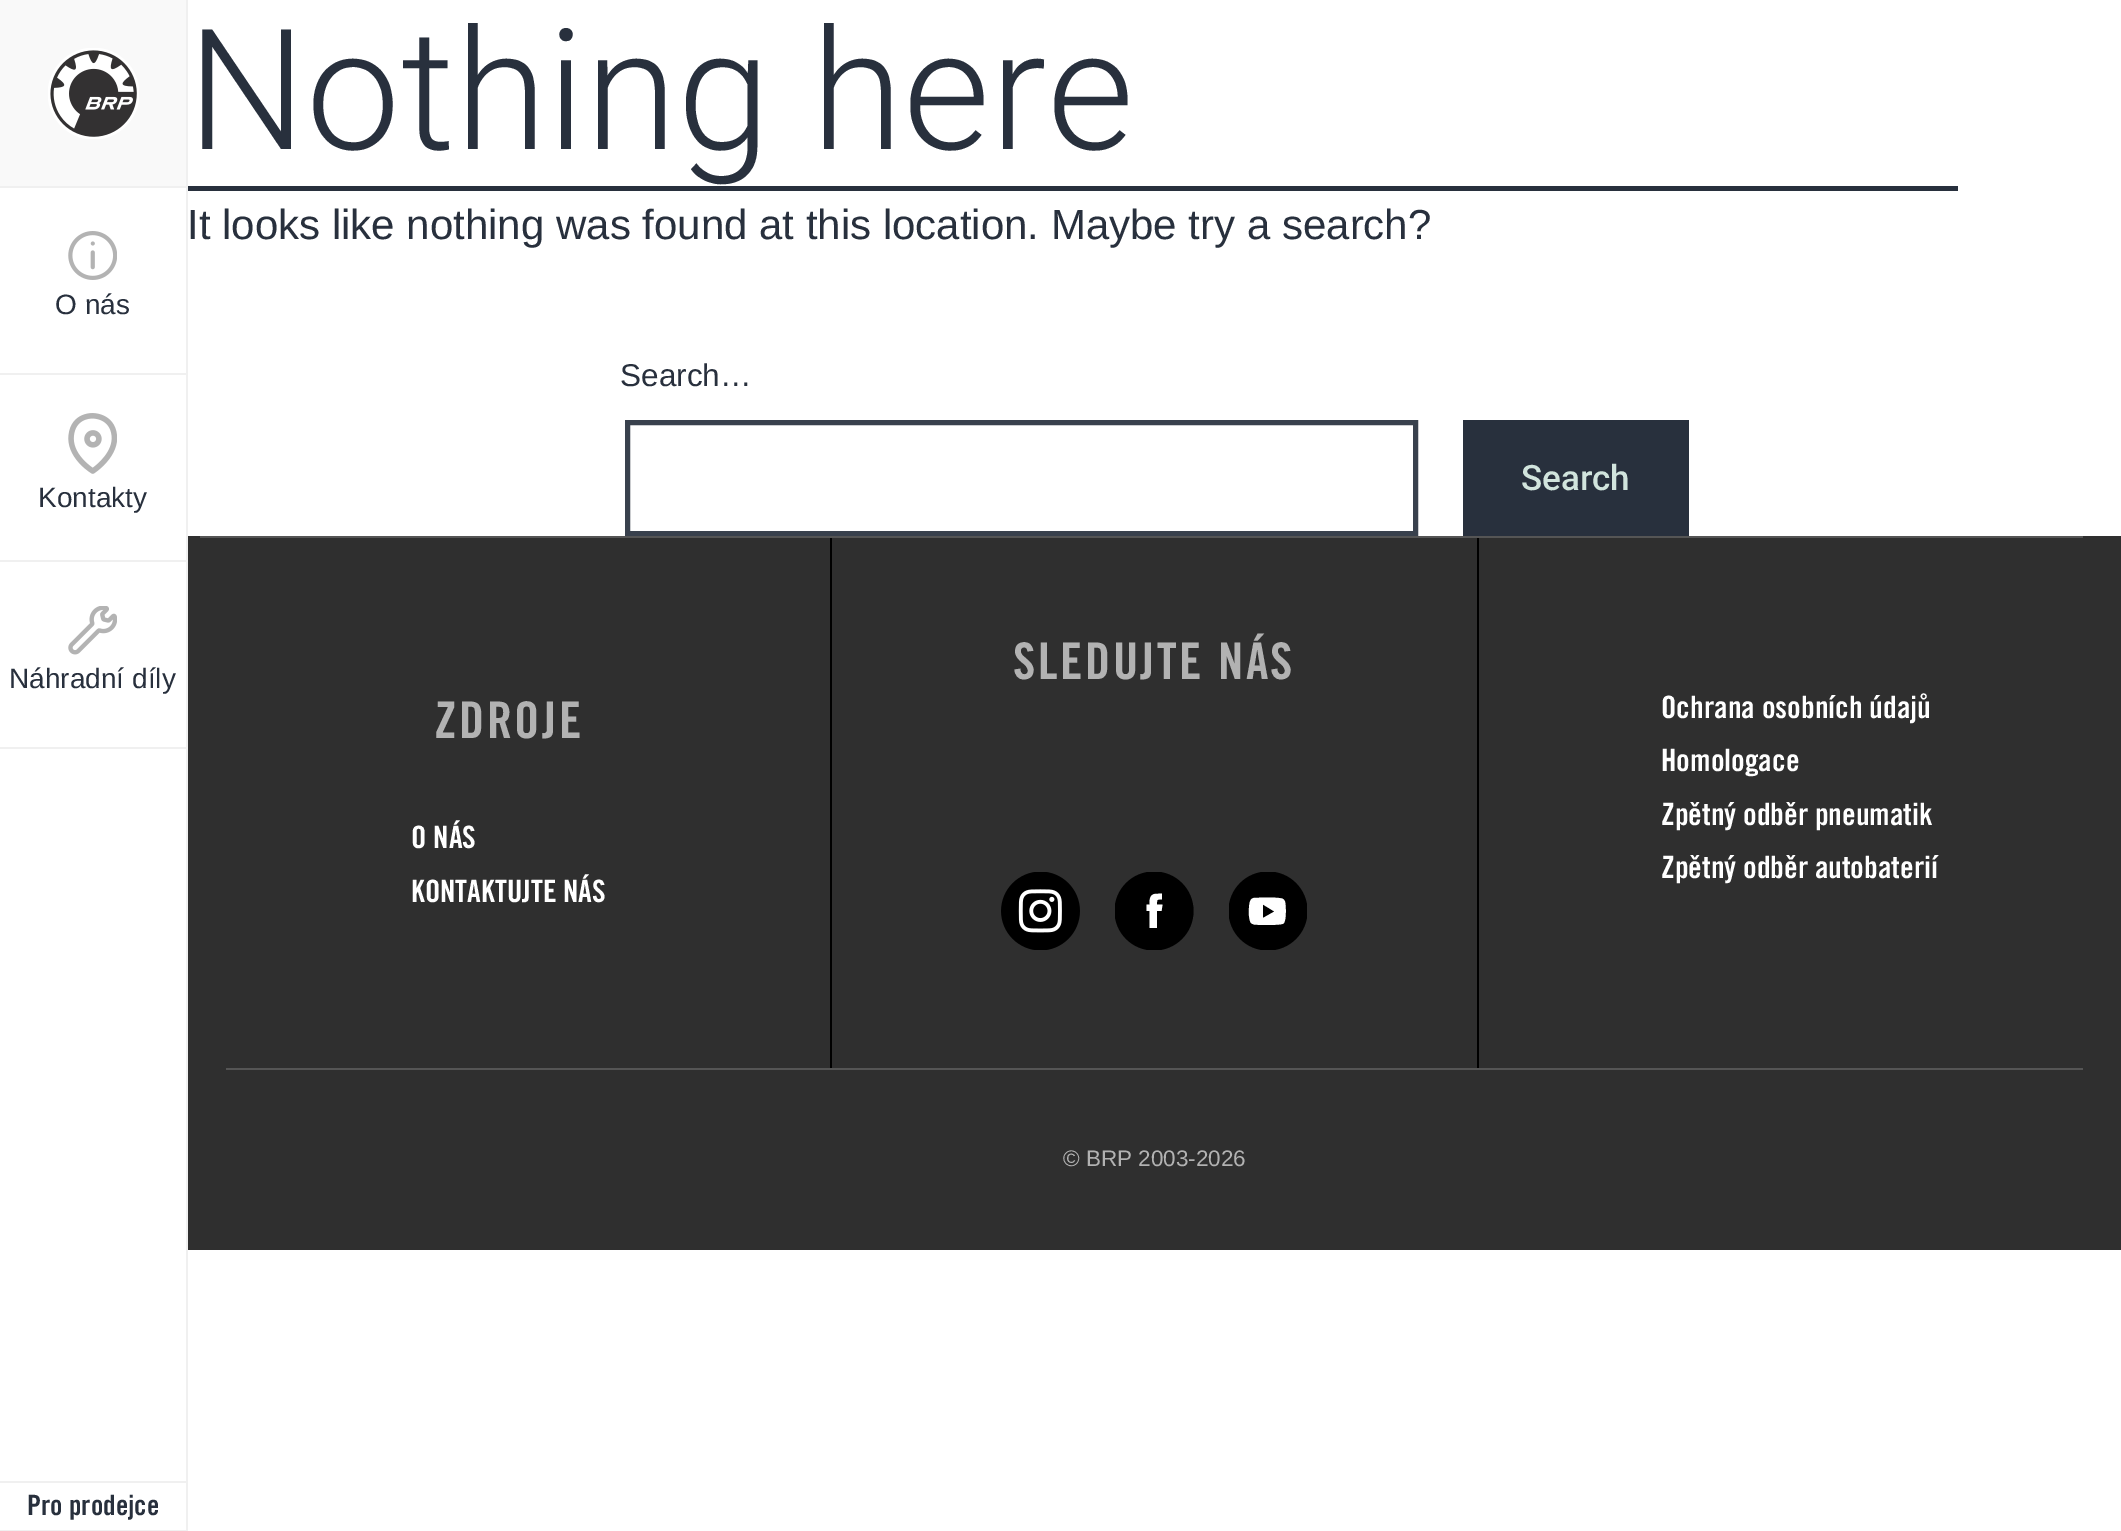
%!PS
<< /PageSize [2121 1531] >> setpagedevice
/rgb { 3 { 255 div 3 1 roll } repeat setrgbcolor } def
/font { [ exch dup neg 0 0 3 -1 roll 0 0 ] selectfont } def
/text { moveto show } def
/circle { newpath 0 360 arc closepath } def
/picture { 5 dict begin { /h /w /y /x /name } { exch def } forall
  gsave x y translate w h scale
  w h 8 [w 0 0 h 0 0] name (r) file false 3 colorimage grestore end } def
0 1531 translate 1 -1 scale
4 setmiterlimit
255 255 255 rgb
0 0 2121 1531 rectfill
40 48 61 rgb
187 186 1771 5 rectfill
240 240 240 rgb
186 0 2 1531 rectfill
249 249 249 rgb
0 0 186 186 rectfill
240 240 240 rgb
0 186 186 2 rectfill
(img_01.rgb) 48 48 91 91 picture
0 373 186 2 rectfill
(img_02.rgb) 68 231 49 49 picture
0 560 186 2 rectfill
(img_03.rgb) 68 413 49 61 picture
0 747 186 2 rectfill
(img_04.rgb) 68 606 49 49 picture
0 1481 186 2 rectfill
0 1530 186 1 rectfill
57 65 77 rgb
5 setlinewidth
627.5 422.5 788 111 rectstroke
40 48 61 rgb
1463 420 226 116 rectfill
47 47 47 rgb
188 536 1933 714 rectfill
0 0 0 rgb
830 536 2 532 rectfill
1477 536 2 532 rectfill
85 85 85 rgb
226 536 1857 2 rectfill
(img_05.rgb) 1001 872 79 78 picture
gsave
1115 872 79 78 rectclip
0 0 0 rgb
1154 911 39.5 circle fill
grestore
255 255 255 rgb
1149.5 911 moveto -3 0 rlineto 0 -6.5 rlineto 3 0 rlineto 0 -4 0 -9.5 5 -10.5 rcurveto 7.5 -0.5 rlineto 0 6 rlineto -5.5 0 -5 -0.5 -5 5 rcurveto 5.5 0 rlineto -1 6.5 rlineto -4.5 0 rlineto 0 17 rlineto -7.5 0 rlineto closepath fill
gsave
1229 872 78 78 rectclip
0 0 0 rgb
1268 911 39.5 circle fill
grestore
1264.5 897.5 moveto 4 0 16.5 0 18.5 1.5 rcurveto 1 0.5 1.5 1.5 2 2.5 rcurveto 1 4 1.5 19.5 -1.5 22 rcurveto -3 2 -25.5 1.5 -29.5 1 rcurveto -2.5 -1 rlineto -2 -2 -2 -5 -2.5 -7.5 rcurveto 0 -4 -0.5 -12 1.5 -15.5 rcurveto 0.5 -1.5 1.5 -2 3 -2.5 rcurveto closepath 1274.5 911.5 moveto -11.5 -7 rlineto 0 13.5 rlineto closepath fill
85 85 85 rgb
200 536 26 2 rectfill
226 1068 1857 2 rectfill
/LiberationSans-Regular 28 font
40 48 61 rgb
(O nás) 55 314 text
(Kontakty) 38 507 text
(Náhradní díly) 9 688 text
/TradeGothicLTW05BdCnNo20-Bold 28 font
(Pro prodejce) 27 1515 text
/Roboto-Light 168 font
(Nothing here) 187 149 text
/LiberationSans-Regular 42 font
(It looks like nothing was found at this location. Maybe try a search?) 187 239 text
/LiberationSans-Regular 31.5 font
(Search…) 620 386 text
/Roboto-Medium 35 font
209 228 221 rgb
(Search) 1521 490 text
/TradeGothicLTW05BdCnNo20-Bold 50.5 font
178 178 178 rgb
1013 679 moveto 2.5 0 (SLEDUJTE NÁS) ashow
434 738 moveto 2.5 0 (ZDROJE) ashow
/TradeGothicLTW05BdCnNo20-Bold 30.75 font
255 255 255 rgb
(O NÁS) 411 848 text
(KONTAKTUJTE NÁS) 411 902 text
(Ochrana osobních údajů) 1661 718 text
(Homologace) 1661 771 text
(Zpětný odběr pneumatik) 1661 825 text
(Zpětný odběr autobaterií) 1661 878 text
/LiberationSans-Regular 22.5 font
178 178 178 rgb
(© BRP 2003-2026) 1063 1166 text
showpage
